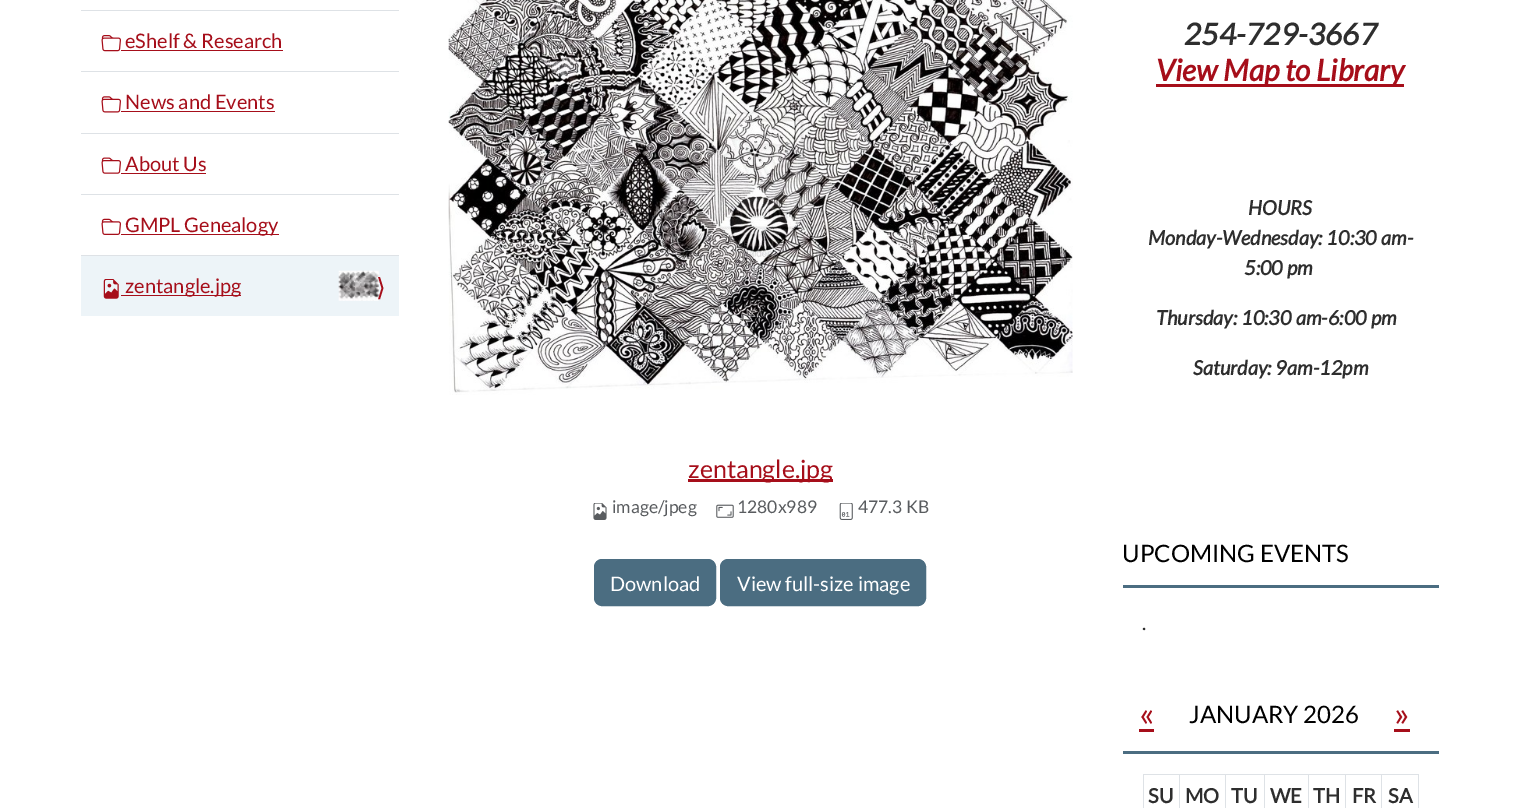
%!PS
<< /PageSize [1520 808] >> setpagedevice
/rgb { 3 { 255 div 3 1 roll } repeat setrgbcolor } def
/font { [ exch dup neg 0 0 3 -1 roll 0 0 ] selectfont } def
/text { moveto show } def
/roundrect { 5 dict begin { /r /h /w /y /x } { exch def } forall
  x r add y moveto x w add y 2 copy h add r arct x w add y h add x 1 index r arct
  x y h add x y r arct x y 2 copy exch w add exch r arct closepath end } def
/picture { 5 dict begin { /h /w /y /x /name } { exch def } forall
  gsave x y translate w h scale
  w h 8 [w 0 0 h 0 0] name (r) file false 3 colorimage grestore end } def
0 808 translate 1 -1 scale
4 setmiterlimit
255 255 255 rgb
0 0 1520 808 rectfill
222 226 230 rgb
81 10 318 1 rectfill
(img_01.rgb) 101 35 20 17 picture
166 14 26 rgb
121 50 162 1 rectfill
222 226 230 rgb
81 71 318 1 rectfill
(img_02.rgb) 101 96 20 17 picture
166 14 26 rgb
121 111 154 1 rectfill
222 226 230 rgb
81 133 318 1 rectfill
(img_03.rgb) 101 157 20 17 picture
166 14 26 rgb
121 173 85 1 rectfill
222 226 230 rgb
81 194 318 1 rectfill
(img_04.rgb) 101 218 20 17 picture
166 14 26 rgb
121 234 158 1 rectfill
222 226 230 rgb
81 255 318 1 rectfill
237 244 248 rgb
81 256 318 60 rectfill
(img_05.rgb) 103 279 16 20 picture
(img_06.rgb) 338 270 41 31 picture
166 14 26 rgb
121 295 120 1 rectfill
1156 84 248 3 rectfill
75 109 129 rgb
1123 585 316 3 rectfill
1123 751 316 3 rectfill
166 14 26 rgb
1139 729 15 3 rectfill
1394 729 16 3 rectfill
222 226 230 rgb
1143 774 276 1 rectfill
1143 774 1 34 rectfill
1179 774 1 34 rectfill
1225 774 1 34 rectfill
1264 774 1 34 rectfill
1308 774 1 34 rectfill
1345 774 1 34 rectfill
1418 774 1 34 rectfill
1381 774 1 34 rectfill
(img_07.rgb) 448 0 625 395 picture
166 14 26 rgb
688 479 145 3 rectfill
(img_08.rgb) 593 503 14 17 picture
(img_09.rgb) 716 504 18 14 picture
(img_10.rgb) 839 503 14 17 picture
75 109 129 rgb
594.5 559.5 121 46 7.5 roundrect gsave fill grestore
stroke
720.5 559.5 205 46 7.5 roundrect gsave fill grestore
stroke
/Lato-Regular 20 font
166 14 26 rgb
(eShelf & Research) 125 48 text
(News and Events) 125 109 text
(About Us) 125 171 text
(GMPL Genealogy) 125 232 text
(zentangle.jpg) 125 293 text
/DejaVuSans-Regular 25 font
(⟩) 376 296 text
/Lato-BoldItalic 30 font
46 46 46 rgb
(254-729-3667) 1184 45 text
166 14 26 rgb
(View Map to Library) 1156 81 text
/Lato-BoldItalic 20 font
46 46 46 rgb
(HOURS) 1248 215 text
(Monday-Wednesday: 10:30 am-) 1148 245 text
(5:00 pm) 1244 275 text
(Thursday: 10:30 am-6:00 pm) 1156 325 text
(Saturday: 9am-12pm) 1193 375 text
/Lato-Regular 24 font
0 0 0 rgb
(UPCOMING EVENTS) 1122 562 text
/Lato-Regular 20 font
46 46 46 rgb
(.) 1142 630 text
/Lato-Regular 34 font
166 14 26 rgb
(«) 1139 726 text
/Lato-Regular 24 font
0 0 0 rgb
(JANUARY 2026) 1189 723 text
/Lato-Regular 34 font
166 14 26 rgb
(») 1394 726 text
/Lato-Bold 20 font
46 46 46 rgb
(SU) 1148 803 text
(MO) 1185 803 text
(TU) 1231 803 text
(WE) 1270 803 text
(TH) 1313 803 text
(FR) 1352 803 text
(SA) 1388 803 text
/Lato-Regular 25 font
166 14 26 rgb
(zentangle.jpg) 688 478 text
/Lato-Regular 17.5 font
89 92 95 rgb
(image/jpeg) 612 513 text
(1280x989) 737 513 text
(477.3 KB) 858 513 text
/Lato-Regular 20 font
255 255 255 rgb
(Download) 610 591 text
(View full-size image) 737 591 text
showpage
